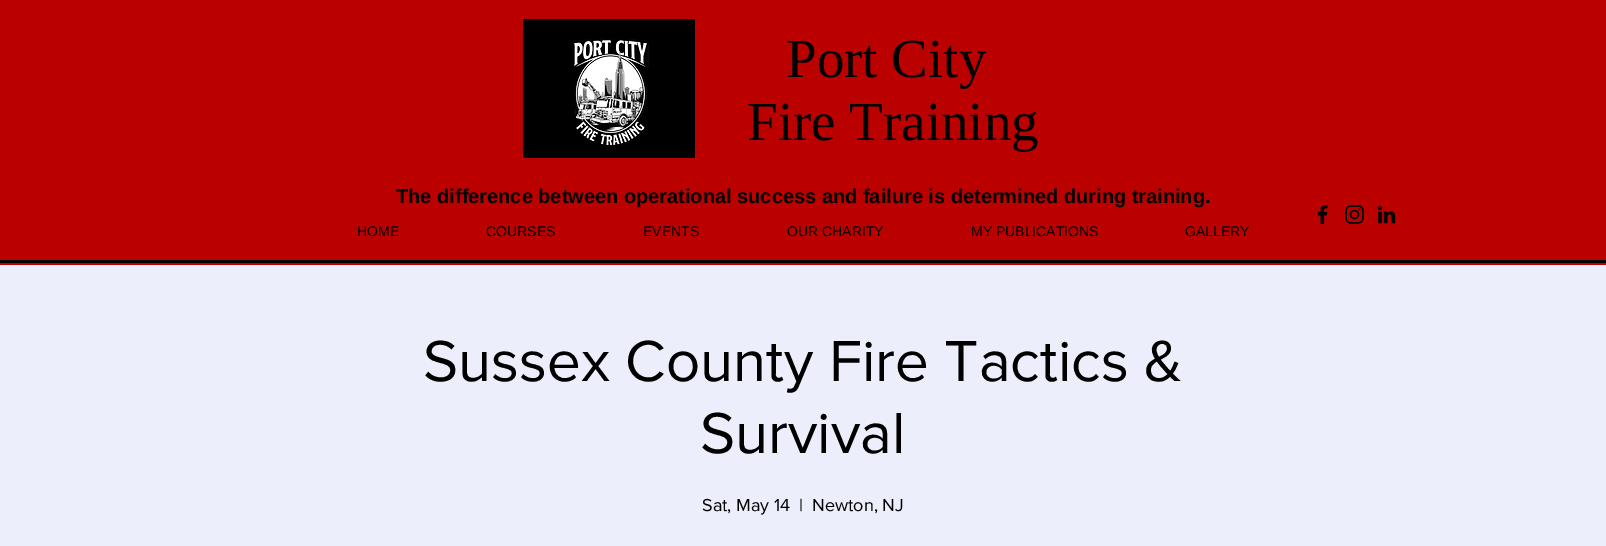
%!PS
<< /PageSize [1606 546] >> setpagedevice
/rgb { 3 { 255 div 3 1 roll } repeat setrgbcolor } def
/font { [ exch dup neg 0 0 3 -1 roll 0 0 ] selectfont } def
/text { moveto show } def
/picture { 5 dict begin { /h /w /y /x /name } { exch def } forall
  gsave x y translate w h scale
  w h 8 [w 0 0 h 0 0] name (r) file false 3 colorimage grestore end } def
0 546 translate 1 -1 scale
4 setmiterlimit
187 0 0 rgb
0 0 1606 546 rectfill
(img_01.rgb) 523 19 172 139 picture
(img_02.rgb) 1317 205 11 20 picture
(img_03.rgb) 1345 205 19 19 picture
(img_04.rgb) 1377 205 19 19 picture
0 0 0 rgb
0 260 1606 3 rectfill
236 238 251 rgb
0 265 1606 281 rectfill
/LiberationSerif-Regular 55 font
0 0 0 rgb
(Port City) 786 77 text
(Fire Training) 747 140 text
/LiberationSans-Bold 20 font
(The difference between operational success and failure is determined during training.) 396 203 text
/LiberationSans-Regular 14 font
(HOME) 357 236 text
(COURSES) 486 236 text
(EVENTS) 643 236 text
(OUR CHARITY) 787 236 text
(MY PUBLICATIONS) 971 236 text
(GALLERY) 1185 236 text
/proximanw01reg-Regular 60 font
(Sussex County Fire Tactics &) 423 381 text
(Survival) 700 453 text
/proximanw01reg-Regular 18 font
(Sat, May 14) 702 511 text
(|) 799 511 text
(Newton, NJ) 812 511 text
showpage
